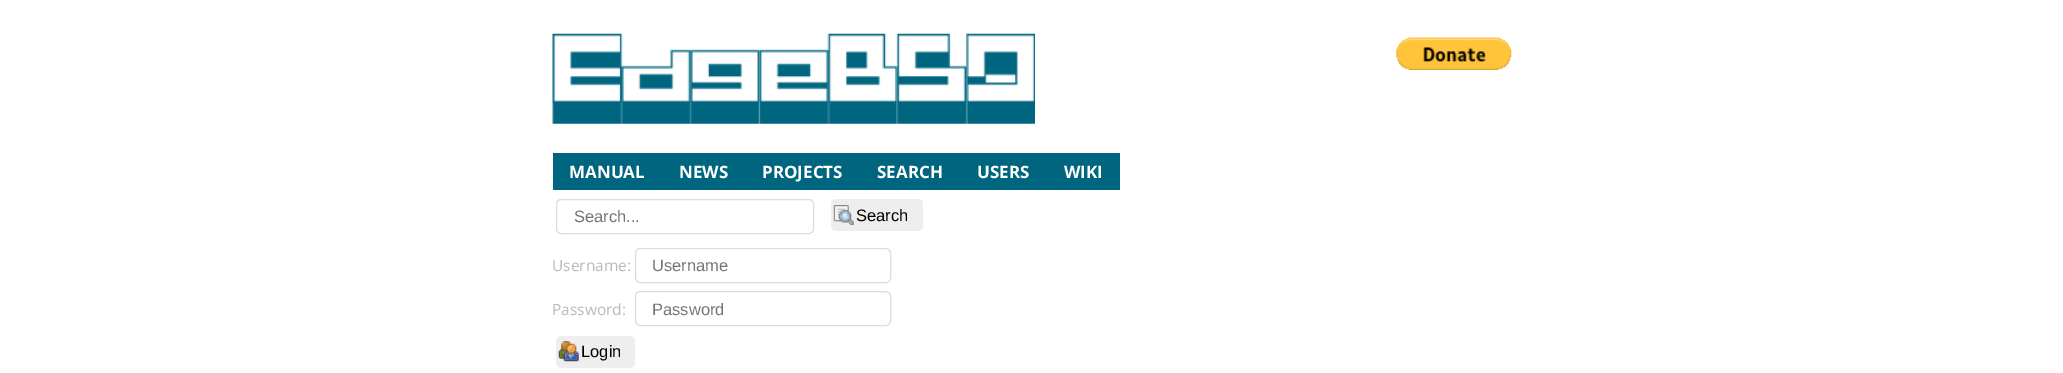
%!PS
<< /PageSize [2063 373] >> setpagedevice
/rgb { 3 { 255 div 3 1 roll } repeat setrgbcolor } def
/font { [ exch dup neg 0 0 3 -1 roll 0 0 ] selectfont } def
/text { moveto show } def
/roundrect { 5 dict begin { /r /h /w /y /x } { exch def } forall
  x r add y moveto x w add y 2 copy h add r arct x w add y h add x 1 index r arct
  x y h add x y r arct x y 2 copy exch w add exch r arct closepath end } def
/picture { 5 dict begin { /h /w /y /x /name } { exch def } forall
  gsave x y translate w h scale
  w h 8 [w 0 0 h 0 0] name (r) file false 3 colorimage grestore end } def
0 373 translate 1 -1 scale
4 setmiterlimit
255 255 255 rgb
0 0 2063 373 rectfill
(img_01.rgb) 552 33 483 91 picture
(img_02.rgb) 1396 37 116 33 picture
0 102 128 rgb
553 153 567 37 rectfill
221 221 221 rgb
556.5 199.5 257 34 4.5 roundrect stroke
238 238 238 rgb
831 199 92 32 5 roundrect fill
(img_03.rgb) 833 205 21 20 picture
221 221 221 rgb
635.5 248.5 255 34 4.5 roundrect stroke
635.5 291.5 255 34 4.5 roundrect stroke
238 238 238 rgb
556 336 79 32 5 roundrect fill
(img_04.rgb) 558 341 21 21 picture
/OpenSans-Bold 17 font
255 255 255 rgb
(MANUAL) 569 178 text
(NEWS) 679 178 text
(PROJECTS) 762 178 text
(SEARCH) 877 178 text
(USERS) 977 178 text
(WIKI) 1064 178 text
/LiberationSans-Regular 16.5 font
117 117 117 rgb
(Search...) 574 222 text
0 0 0 rgb
(Search) 856 221 text
/OpenSans-Regular 15.5 font
187 187 187 rgb
(Username:) 552 271 text
/LiberationSans-Regular 16.5 font
117 117 117 rgb
(Username) 652 271 text
/OpenSans-Regular 15.5 font
187 187 187 rgb
(Password:) 552 315 text
/LiberationSans-Regular 16.5 font
117 117 117 rgb
(Password) 652 315 text
0 0 0 rgb
(Login) 581 357 text
showpage
